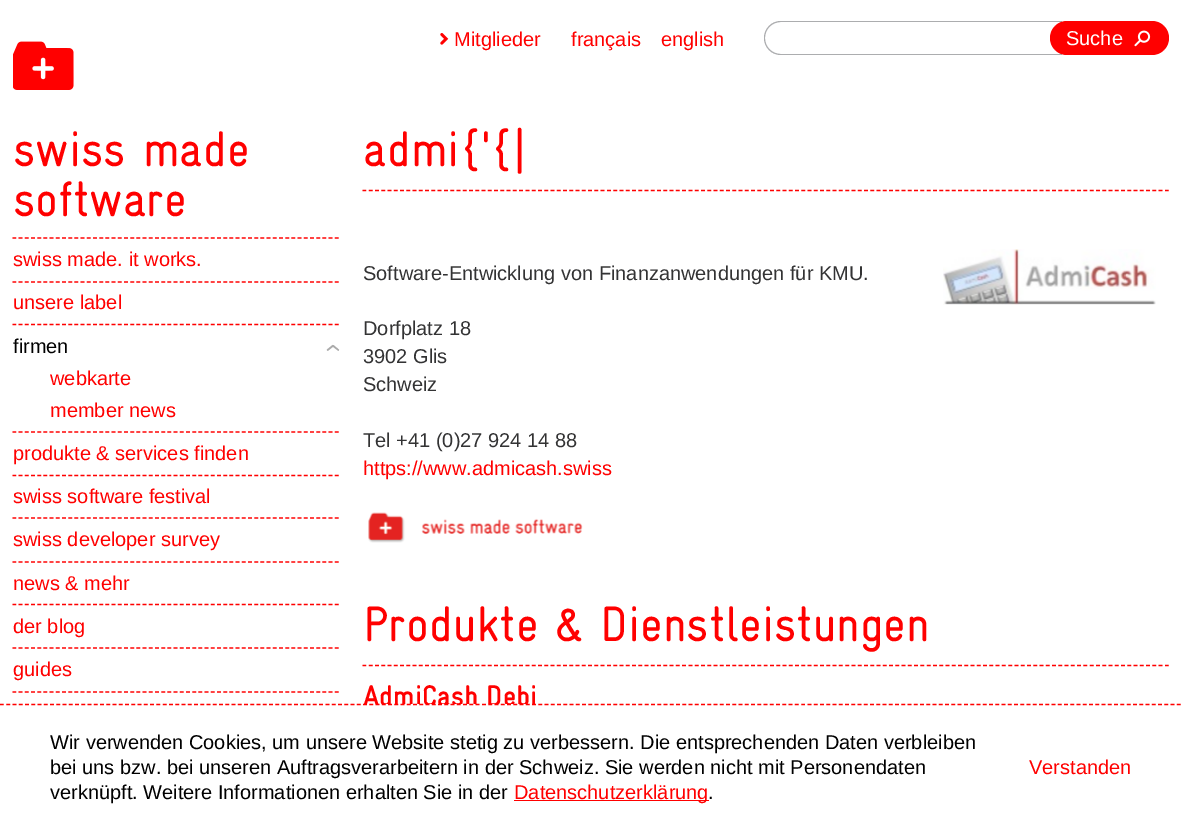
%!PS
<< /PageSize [1181 829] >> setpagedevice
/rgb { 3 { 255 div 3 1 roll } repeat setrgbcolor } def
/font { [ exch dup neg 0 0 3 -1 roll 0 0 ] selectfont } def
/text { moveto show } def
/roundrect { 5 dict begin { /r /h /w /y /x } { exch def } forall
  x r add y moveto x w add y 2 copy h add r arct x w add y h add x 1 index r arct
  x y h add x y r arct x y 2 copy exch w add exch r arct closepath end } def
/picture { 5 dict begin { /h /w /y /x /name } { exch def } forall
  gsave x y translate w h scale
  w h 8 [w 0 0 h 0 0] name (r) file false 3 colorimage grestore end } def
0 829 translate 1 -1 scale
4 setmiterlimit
255 255 255 rgb
0 0 1181 829 rectfill
(img_01.rgb) 13 41 61 49 picture
255 0 0 rgb
1.2 setlinewidth
[3.75 2.45] 0 setdash
12.5 238 moveto 326.5 0 rlineto stroke
12.5 282 moveto 326.5 0 rlineto stroke
12.5 324.5 moveto 326.5 0 rlineto stroke
12.5 432 moveto 326.5 0 rlineto stroke
12.5 475.5 moveto 326.5 0 rlineto stroke
12.5 518 moveto 326.5 0 rlineto stroke
12.5 562 moveto 326.5 0 rlineto stroke
12.5 604.5 moveto 326.5 0 rlineto stroke
12.5 648 moveto 326.5 0 rlineto stroke
12.5 692 moveto 326.5 0 rlineto stroke
(img_02.rgb) 440 33 9 12 picture
172 173 175 rgb
781 21 moveto 281 0 rlineto 0 34 rlineto -281 0 rlineto -10 0 -17 -8 -17 -17 rcurveto 0 -9 7 -17 17 -17 rcurveto closepath 781 22 moveto 281 0 rlineto 0 32 rlineto -281 0 rlineto -9 0 -16 -7 -16 -16 rcurveto 0 -9 7 -16 16 -16 rcurveto closepath eofill
255 0 0 rgb
1050 21 119 34 17 roundrect fill
(img_03.rgb) 1134 30 17 17 picture
[3.75 2.52] 0 setdash
362.5 190.5 moveto 806.5 0 rlineto stroke
(img_04.rgb) 368 512 215 31 picture
(img_05.rgb) 943 249 213 56 picture
362.5 665.5 moveto 806.5 0 rlineto stroke
514 800 195 1 rectfill
/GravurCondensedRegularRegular-Regular 50 font
(swiss made) 13 166 text
(software) 13 216 text
/LiberationSans-Regular 20 font
(swiss made. it works.) 13 266 text
(unsere label) 13 309 text
0 0 0 rgb
(firmen) 13 353 text
/GravurCondensedRegularRegular-Regular 25 font
170 170 170 rgb
gsave 339 352 translate -90 rotate 0 0 moveto (>) show grestore
/LiberationSans-Regular 20 font
255 0 0 rgb
(webkarte) 50 385 text
(member news) 50 417 text
(produkte & services finden) 13 460 text
(swiss software festival) 13 503 text
(swiss developer survey) 13 546 text
(news & mehr) 13 590 text
(der blog) 13 633 text
(guides) 13 676 text
(Mitglieder) 454 46 text
(français) 571 46 text
(english) 661 46 text
255 255 255 rgb
(Suche) 1066 45 text
/GravurCondensedRegularRegular-Regular 50 font
255 0 0 rgb
(admi{'{|) 363 166 text
/LiberationSans-Regular 20 font
51 51 52 rgb
(Software-Entwicklung von Finanzanwendungen für KMU.) 363 280 text
(Dorfplatz 18) 363 335 text
(3902 Glis) 363 363 text
(Schweiz) 363 391 text
(Tel +41 \(0\)27 924 14 88) 363 447 text
255 0 0 rgb
(https://www.admicash.swiss) 363 475 text
/GravurCondensedRegularRegular-Regular 50 font
(Produkte & Dienstleistungen) 363 641 text
/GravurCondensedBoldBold-Bold 30 font
(AdmiCash Debi) 363 706 text
255 255 255 rgb
363 704 172 3 rectfill
255 0 0 rgb
[3.75 2.51] 0 setdash
0 704.5 moveto 1181 0 rlineto stroke
/LiberationSans-Regular 20 font
0 0 0 rgb
(Wir verwenden Cookies, um unsere Website stetig zu verbessern. Die entsprechenden Daten verbleiben) 50 749 text
(bei uns bzw. bei unseren Auftragsverarbeitern in der Schweiz. Sie werden nicht mit Personendaten) 50 774 text
(verknüpft. Weitere Informationen erhalten Sie in der) 50 799 text
255 0 0 rgb
(Datenschutzerklärung) 514 799 text
0 0 0 rgb
(.) 708 799 text
255 0 0 rgb
(Verstanden) 1029 774 text
showpage
